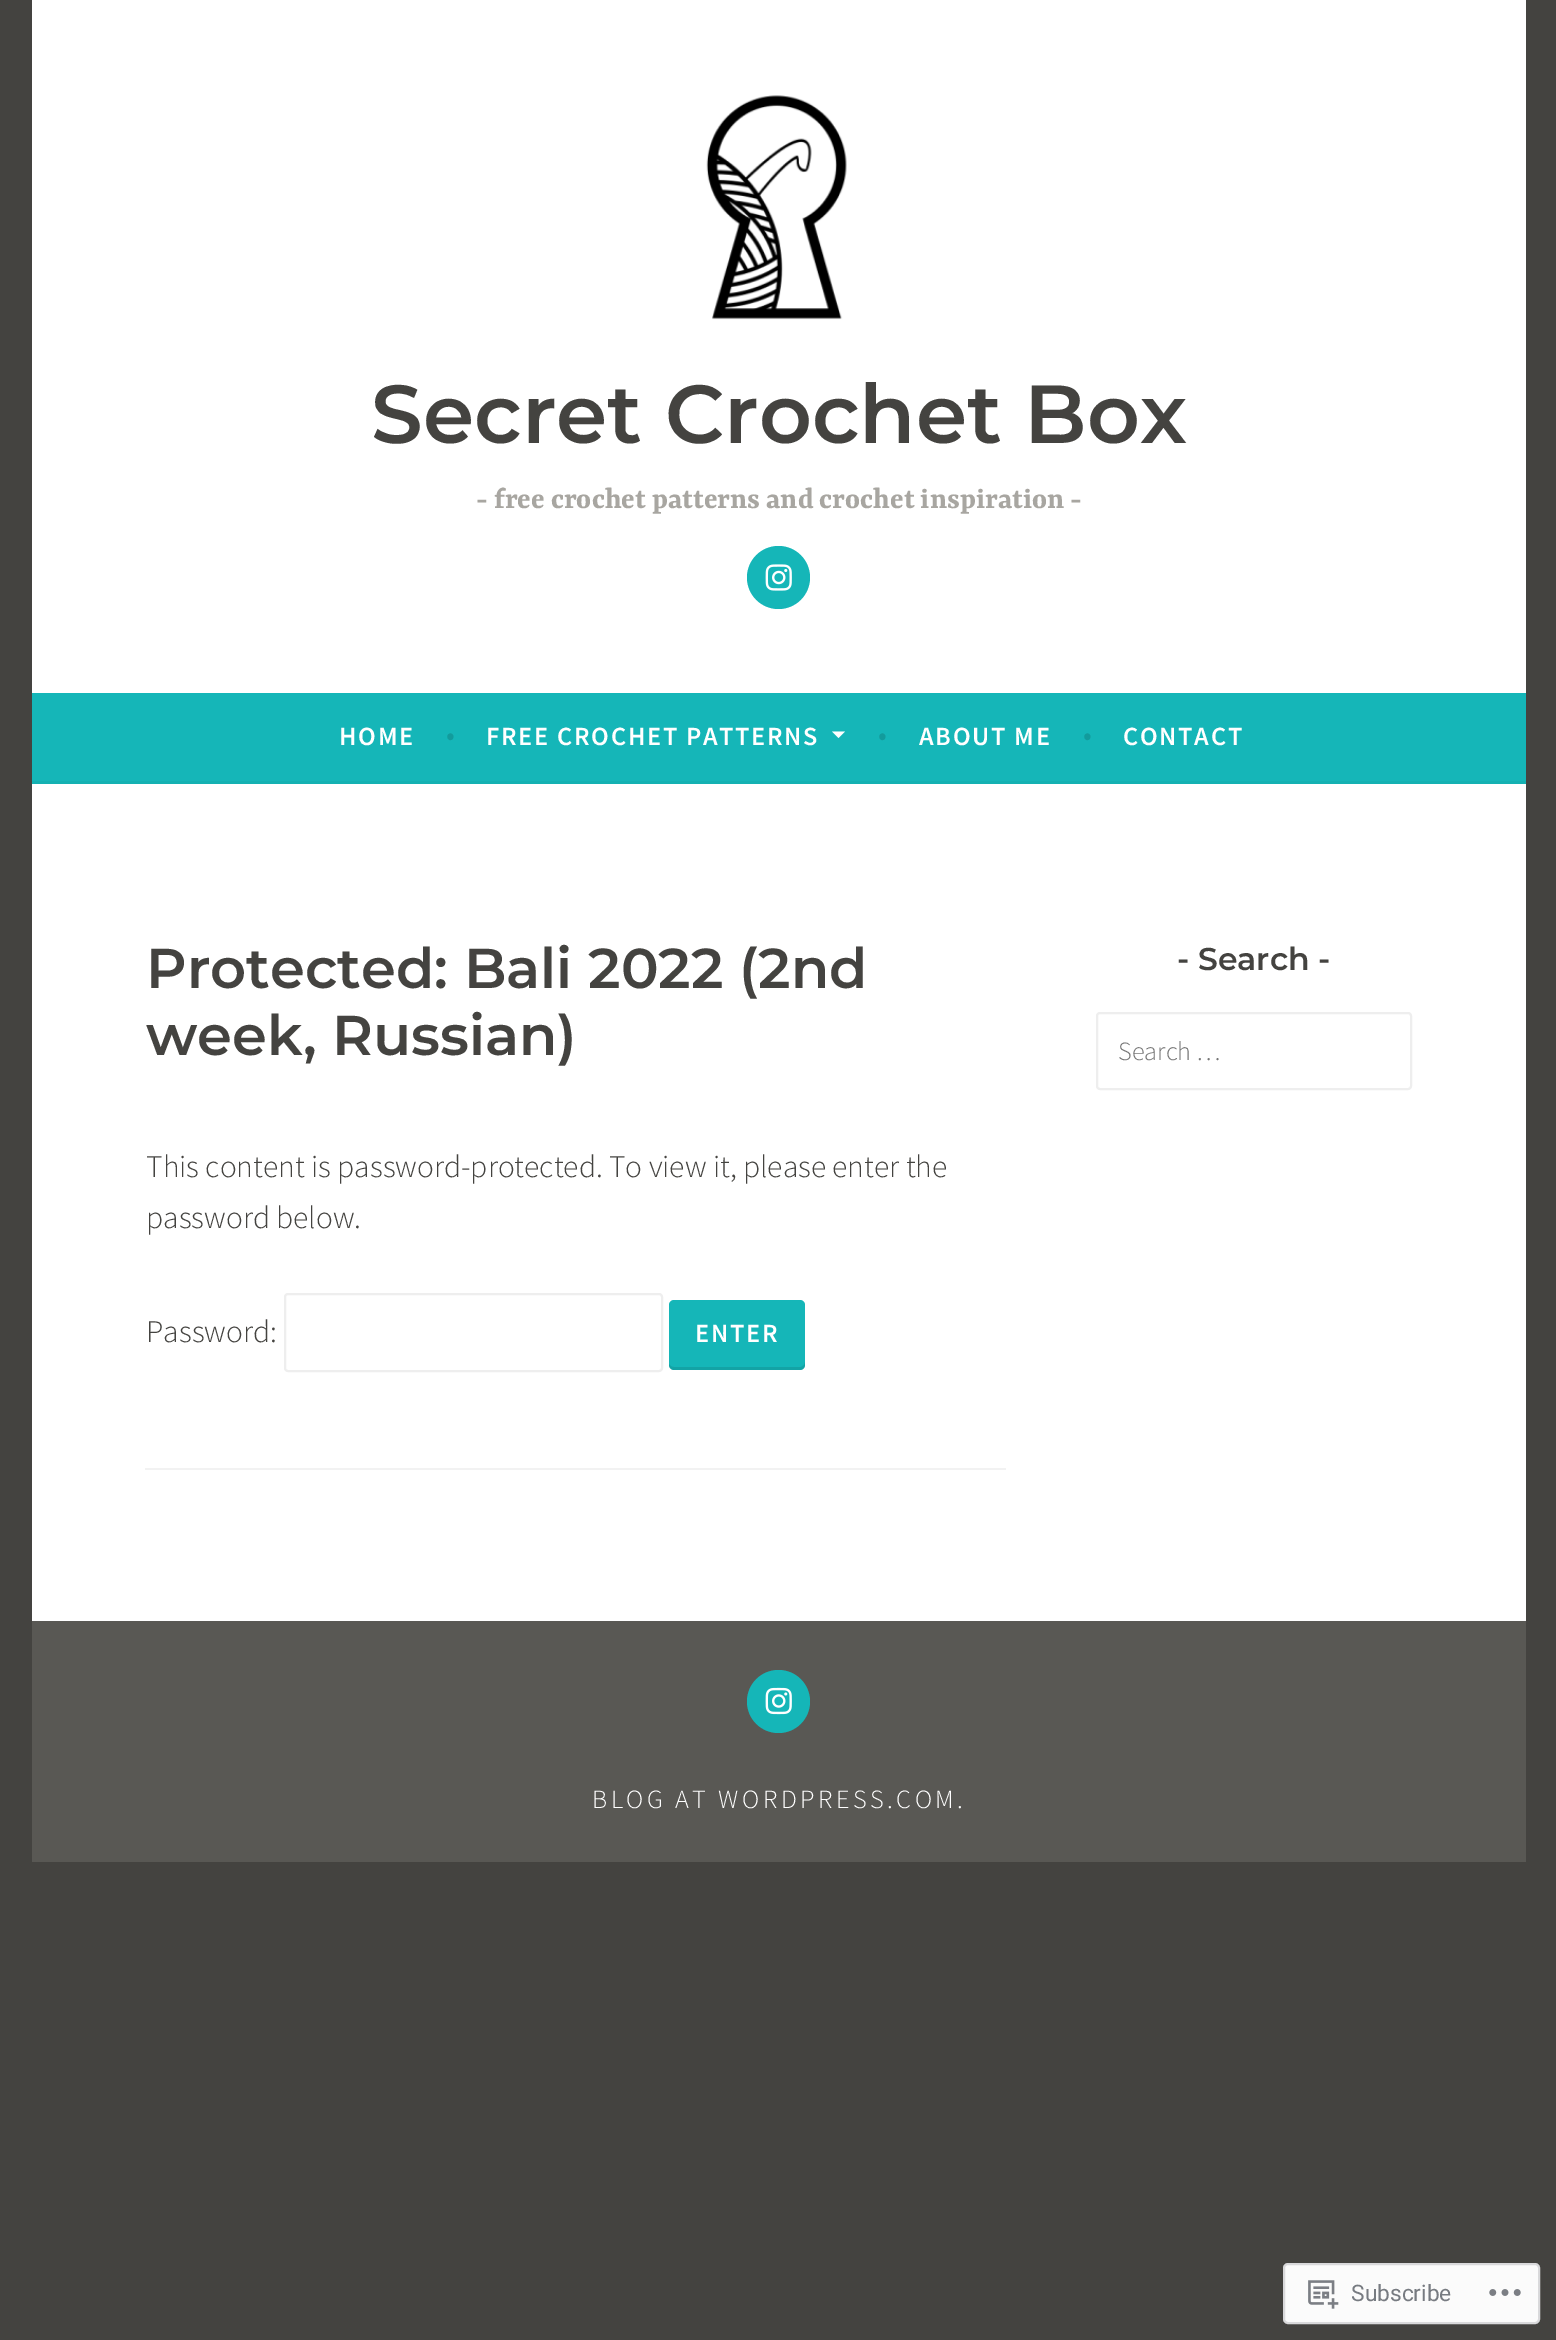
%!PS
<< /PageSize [1556 2340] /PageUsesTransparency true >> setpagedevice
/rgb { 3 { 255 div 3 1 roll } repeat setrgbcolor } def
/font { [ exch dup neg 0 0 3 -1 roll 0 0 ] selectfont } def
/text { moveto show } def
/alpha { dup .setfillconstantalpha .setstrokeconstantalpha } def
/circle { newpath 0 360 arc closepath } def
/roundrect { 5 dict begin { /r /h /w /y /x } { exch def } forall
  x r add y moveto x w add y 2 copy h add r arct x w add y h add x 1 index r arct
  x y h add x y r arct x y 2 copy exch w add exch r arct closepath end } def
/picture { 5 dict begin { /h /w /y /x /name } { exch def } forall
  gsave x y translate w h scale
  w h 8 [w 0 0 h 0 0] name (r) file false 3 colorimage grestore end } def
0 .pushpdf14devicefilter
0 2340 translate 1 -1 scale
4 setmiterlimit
68 67 64 rgb
0 0 1556 2340 rectfill
255 255 255 rgb
32 0 1494 693 rectfill
(img_01.rgb) 706 95 141 225 picture
21 182 184 rgb
778.5 577.5 31.5 circle fill
(img_02.rgb) 765 564 27 27 picture
32 693 1494 88 rectfill
20 177 178 rgb
32 781 1494 3 rectfill
255 255 255 rgb
832 731.5 moveto 13 0 rlineto -6.5 6.5 rlineto closepath fill
32 784 1494 837 rectfill
238 238 238 rgb
2 setlinewidth
285 1294 377 77 3 roundrect stroke
21 182 184 rgb
669 1300 136 70 5 roundrect fill
0.1 alpha
0 0 0 rgb
669 1364 moveto 0 1 rlineto 0 3 2 5 5 5 rcurveto 126 0 rlineto 3 0 5 -2 5 -5 rcurveto 0 -3 rlineto 0 2 -2 5 -5 5 rcurveto -126 0 rlineto -2 0 -4 -1 -5 -3 rcurveto closepath fill
1 alpha
242 242 242 rgb
145 1468 861 2 rectfill
238 238 238 rgb
1097 1013 314 76 3 roundrect stroke
89 88 84 rgb
32 1621 1494 241 rectfill
21 182 184 rgb
778.5 1701.5 31.5 circle fill
(img_03.rgb) 765 1687 27 28 picture
251 251 251 rgb
1284 2264 255 59 4 roundrect gsave fill grestore
217 217 219 rgb
stroke
(img_04.rgb) 1308 2280 31 29 picture
(img_05.rgb) 1489 2289 32 7 picture
/Montserrat-Thin 82.25 font
68 67 64 rgb
(Secret Crochet Box) 371 443 text
/Yrsa-Bold 31.5 font
168 166 161 rgb
(- free crochet patterns and crochet inspiration -) 476 508 text
/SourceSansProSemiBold-SemiBold 26.25 font
255 255 255 rgb
339 745 moveto 1.75 0 (HOME) ashow
/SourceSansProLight-Light 31.5 font
18 155 156 rgb
(•) 446 745 text
/SourceSansProSemiBold-SemiBold 26.25 font
255 255 255 rgb
486 745 moveto 1.75 0 (FREE CROCHET PATTERNS) ashow
/SourceSansProLight-Light 31.5 font
18 155 156 rgb
(•) 878 745 text
/SourceSansProSemiBold-SemiBold 26.25 font
255 255 255 rgb
919 745 moveto 1.75 0 (ABOUT ME) ashow
/SourceSansProLight-Light 31.5 font
18 155 156 rgb
(•) 1083 745 text
/SourceSansProSemiBold-SemiBold 26.25 font
255 255 255 rgb
1123 745 moveto 1.75 0 (CONTACT) ashow
/Montserrat-Thin 56 font
68 67 64 rgb
(Protected: Bali 2022 \(2nd) 146 988 text
(week, Russian\)) 146 1055 text
/SourceSansProLight-Light 31.5 font
(This content is password-protected. To view it, please enter the) 146 1177 text
(password below.) 146 1228 text
(Password:) 146 1342 text
/SourceSansProSemiBold-SemiBold 26.25 font
255 255 255 rgb
695 1342 moveto 1.75 0 (ENTER) ashow
/Montserrat-Thin 31.5 font
68 67 64 rgb
(- Search -) 1177 970 text
/SourceSansProLight-Light 26.25 font
117 117 117 rgb
(Search …) 1118 1060 text
255 255 255 rgb
592 1808 moveto 3.5 0 (BLOG AT WORDPRESS.COM.) ashow
/Roboto-Regular 22.75 font
119 123 129 rgb
(Subscribe) 1351 2301 text
.poppdf14devicefilter showpage
